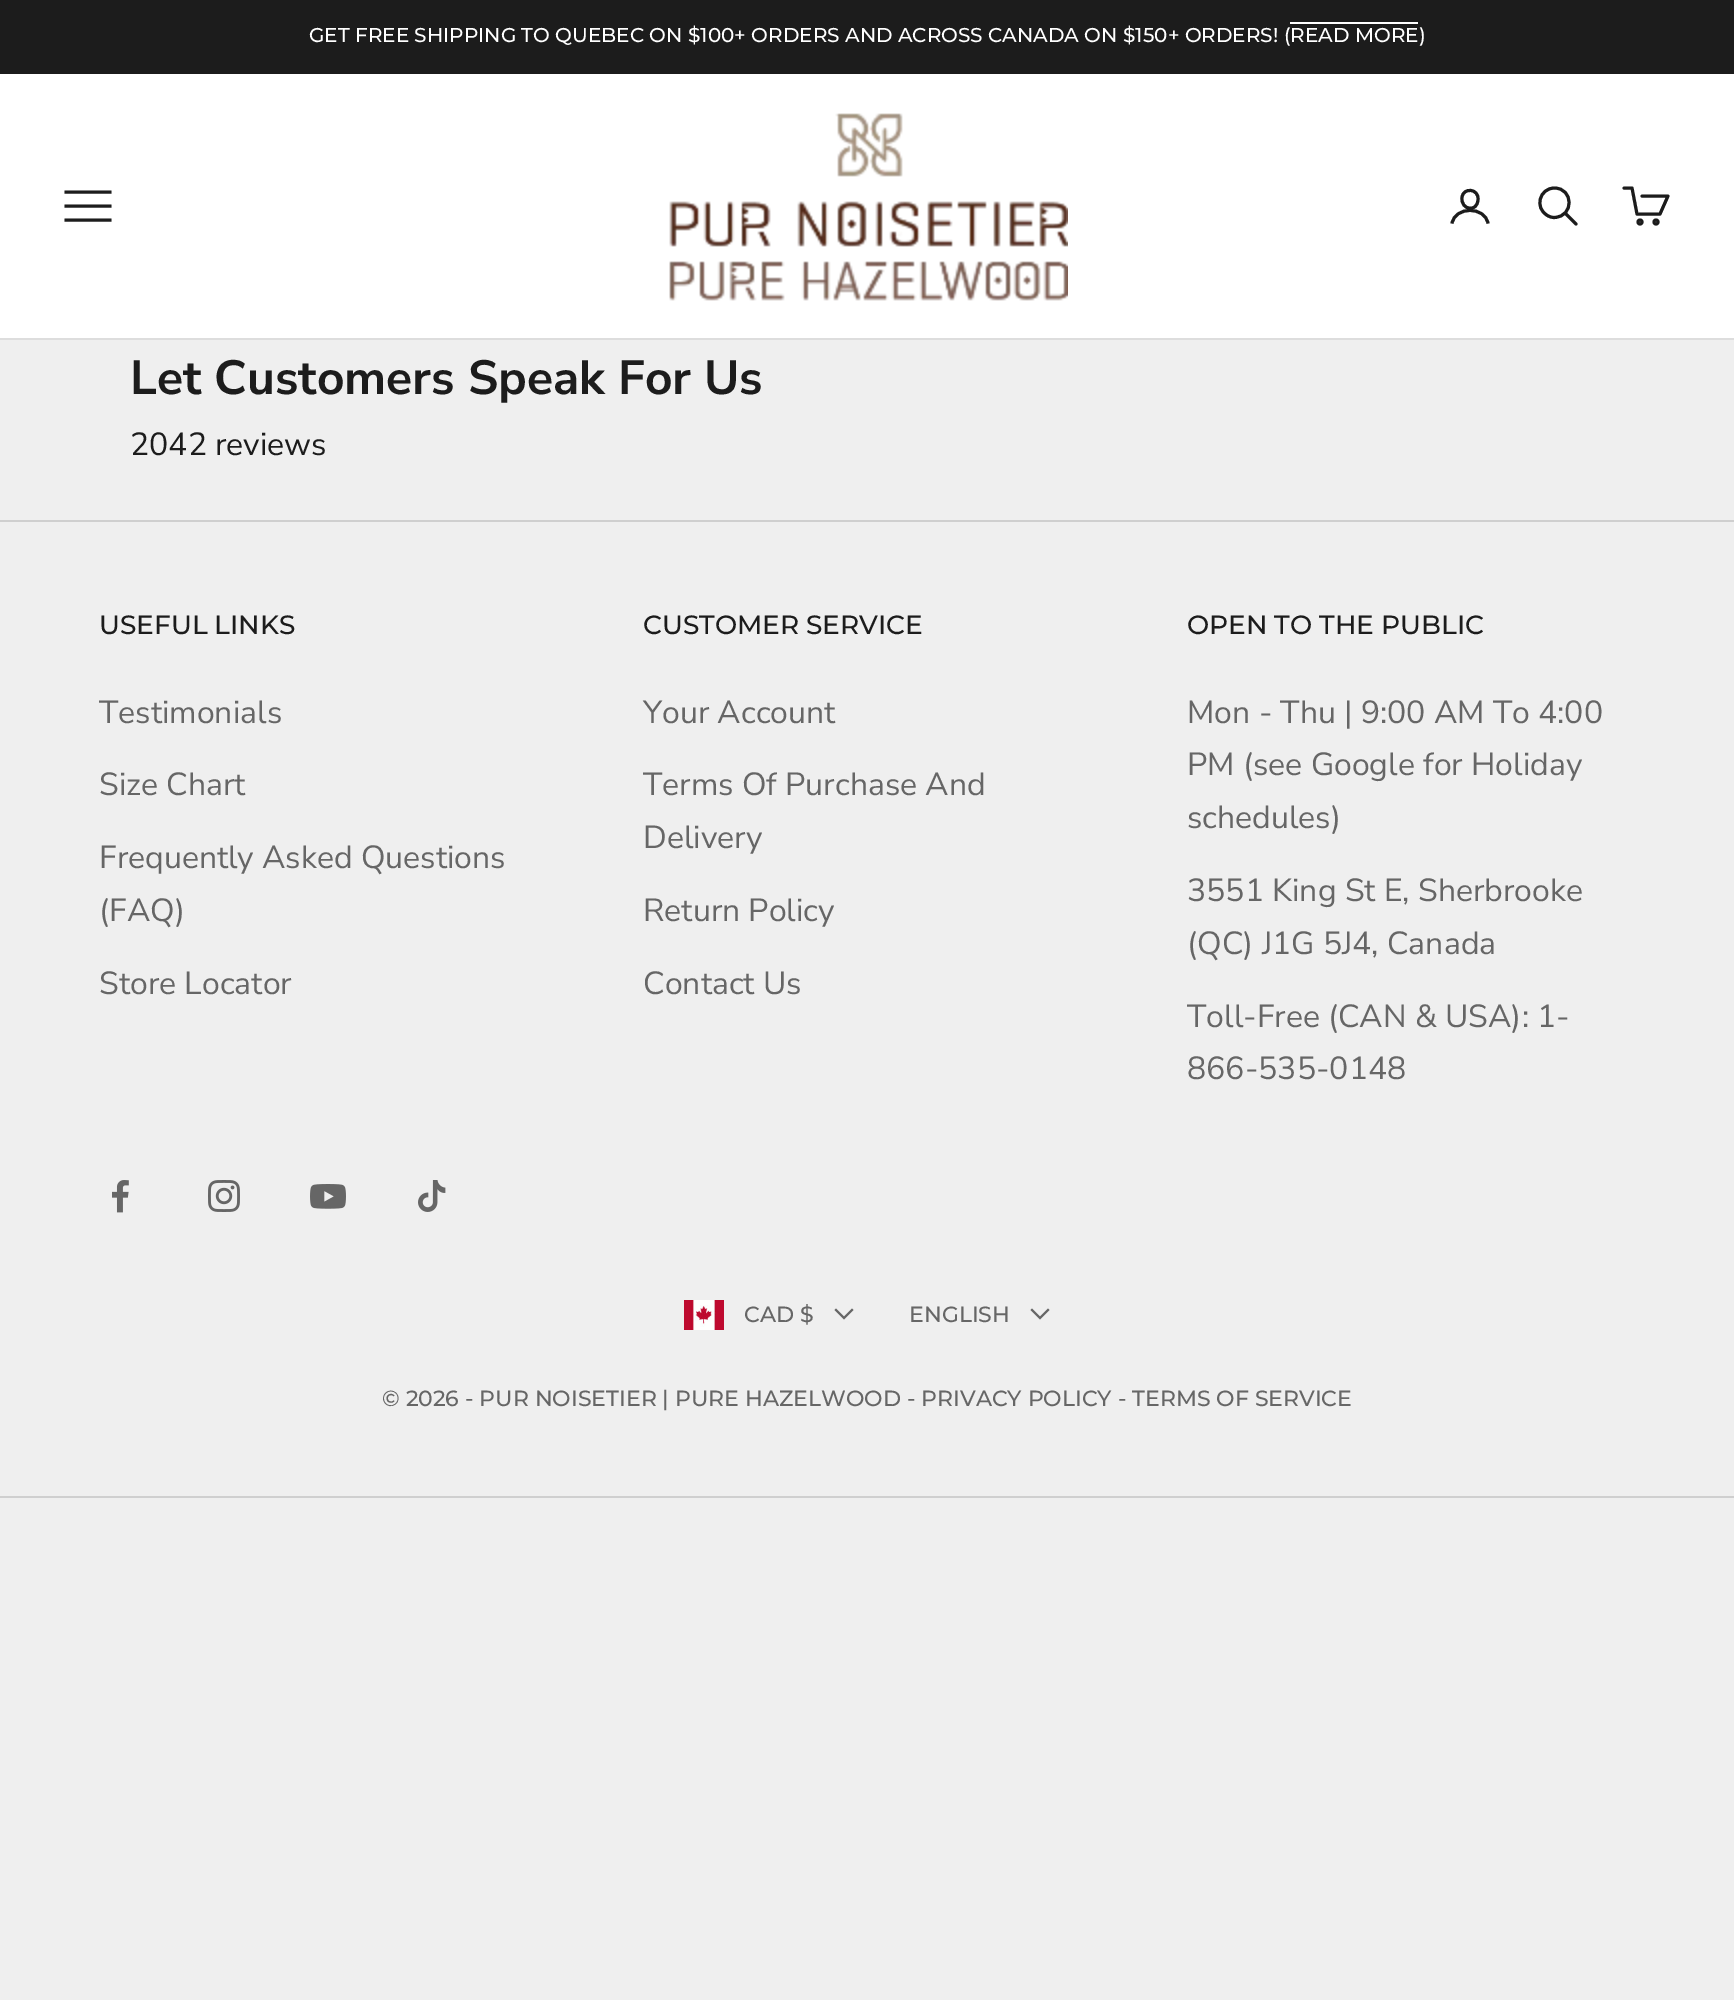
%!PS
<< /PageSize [1734 2000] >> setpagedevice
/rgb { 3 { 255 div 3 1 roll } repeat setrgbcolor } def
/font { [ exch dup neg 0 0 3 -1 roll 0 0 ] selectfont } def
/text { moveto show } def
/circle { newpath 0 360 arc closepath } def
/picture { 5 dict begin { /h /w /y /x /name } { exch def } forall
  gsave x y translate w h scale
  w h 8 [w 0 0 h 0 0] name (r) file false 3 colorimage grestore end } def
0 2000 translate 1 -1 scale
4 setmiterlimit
239 239 239 rgb
0 0 1734 2000 rectfill
28 28 28 rgb
0 0 1734 74 rectfill
255 255 255 rgb
1290 22 128 2 rectfill
0 74 1734 264 rectfill
221 221 221 rgb
0 338 1734 2 rectfill
28 28 28 rgb
3 setlinewidth
2 setlinecap
66 220 moveto 44 0 rlineto 66 206 moveto 44 0 rlineto 66 192 moveto 44 0 rlineto stroke
(img_01.rgb) 669 113 399 188 picture
1 setlinecap
1 setlinejoin
1478 199.5 moveto -0.5 13.5 -17.5 10.5 -16 -2 rcurveto 1 -10.5 17 -9 16 2 rcurveto closepath stroke
0 setlinecap
0 setlinejoin
1452 223.5 moveto 3 -17.5 33 -17.5 36 0 rcurveto stroke
1554.5 188 moveto -15 0 -20.5 20 -7 27.5 rcurveto 2 1.5 4.5 2 7 2 rcurveto 20 -1 19 -29.5 0 -29.5 rcurveto closepath stroke
1 setlinecap
1565.5 213.5 moveto 10.5 10.5 rlineto stroke
1 setlinejoin
1642 196 moveto 26 0 rlineto -8 18 rlineto -23 0 rlineto -5 -26 rlineto -8 0 rlineto stroke
0 setlinecap
0 setlinejoin
1640 222 2 circle stroke
1656 222 2 circle stroke
207 207 207 rgb
0 520 1734 2 rectfill
(img_02.rgb) 112 1180 17 33 picture
(img_03.rgb) 208 1180 32 32 picture
(img_04.rgb) 310 1184 36 25 picture
(img_05.rgb) 418 1180 28 32 picture
(img_06.rgb) 684 1300 40 30 picture
102 102 102 rgb
2 setlinewidth
2 setlinecap
836 1310 moveto 8 8 rlineto 8 -8 rlineto stroke
1032 1310 moveto 8 8 rlineto 8 -8 rlineto stroke
207 207 207 rgb
0 1496 1734 2 rectfill
/Montserrat-Medium 20 font
255 255 255 rgb
(GET FREE SHIPPING TO QUEBEC ON $100+ ORDERS AND ACROSS CANADA ON $150+ ORDERS! \(READ MORE\)) 309 42 text
/NunitoSans-Bold 48 font
28 28 28 rgb
(Let Customers Speak For Us) 130 394 text
/NunitoSans-Regular 32 font
(2042 reviews) 130 455 text
/Montserrat-Medium 26.4 font
(USEFUL LINKS) 99 634 text
/NunitoSans-Regular 32 font
102 102 102 rgb
(Testimonials) 99 723 text
(Size Chart) 99 795 text
(Frequently Asked Questions) 99 868 text
(\(FAQ\)) 99 921 text
(Store Locator) 99 994 text
/Montserrat-Medium 26.4 font
28 28 28 rgb
(CUSTOMER SERVICE) 643 634 text
/NunitoSans-Regular 32 font
102 102 102 rgb
(Your Account) 643 723 text
(Terms Of Purchase And) 643 795 text
(Delivery) 643 848 text
(Return Policy) 643 921 text
(Contact Us) 643 994 text
/Montserrat-Medium 26.4 font
28 28 28 rgb
(OPEN TO THE PUBLIC) 1187 634 text
/NunitoSans-Regular 32 font
102 102 102 rgb
(Mon - Thu | 9:00 AM To 4:00) 1187 723 text
(PM \(see Google for Holiday) 1187 775 text
(schedules\)) 1187 828 text
(3551 King St E, Sherbrooke) 1187 901 text
(\(QC\) J1G 5J4, Canada) 1187 954 text
(Toll-Free \(CAN & USA\): 1-) 1187 1027 text
(866-535-0148) 1187 1079 text
/Montserrat-Medium 22 font
(CAD $) 744 1322 text
(ENGLISH) 909 1322 text
(© 2026 - PUR NOISETIER | PURE HAZELWOOD - PRIVACY POLICY - TERMS OF SERVICE) 382 1406 text
showpage
